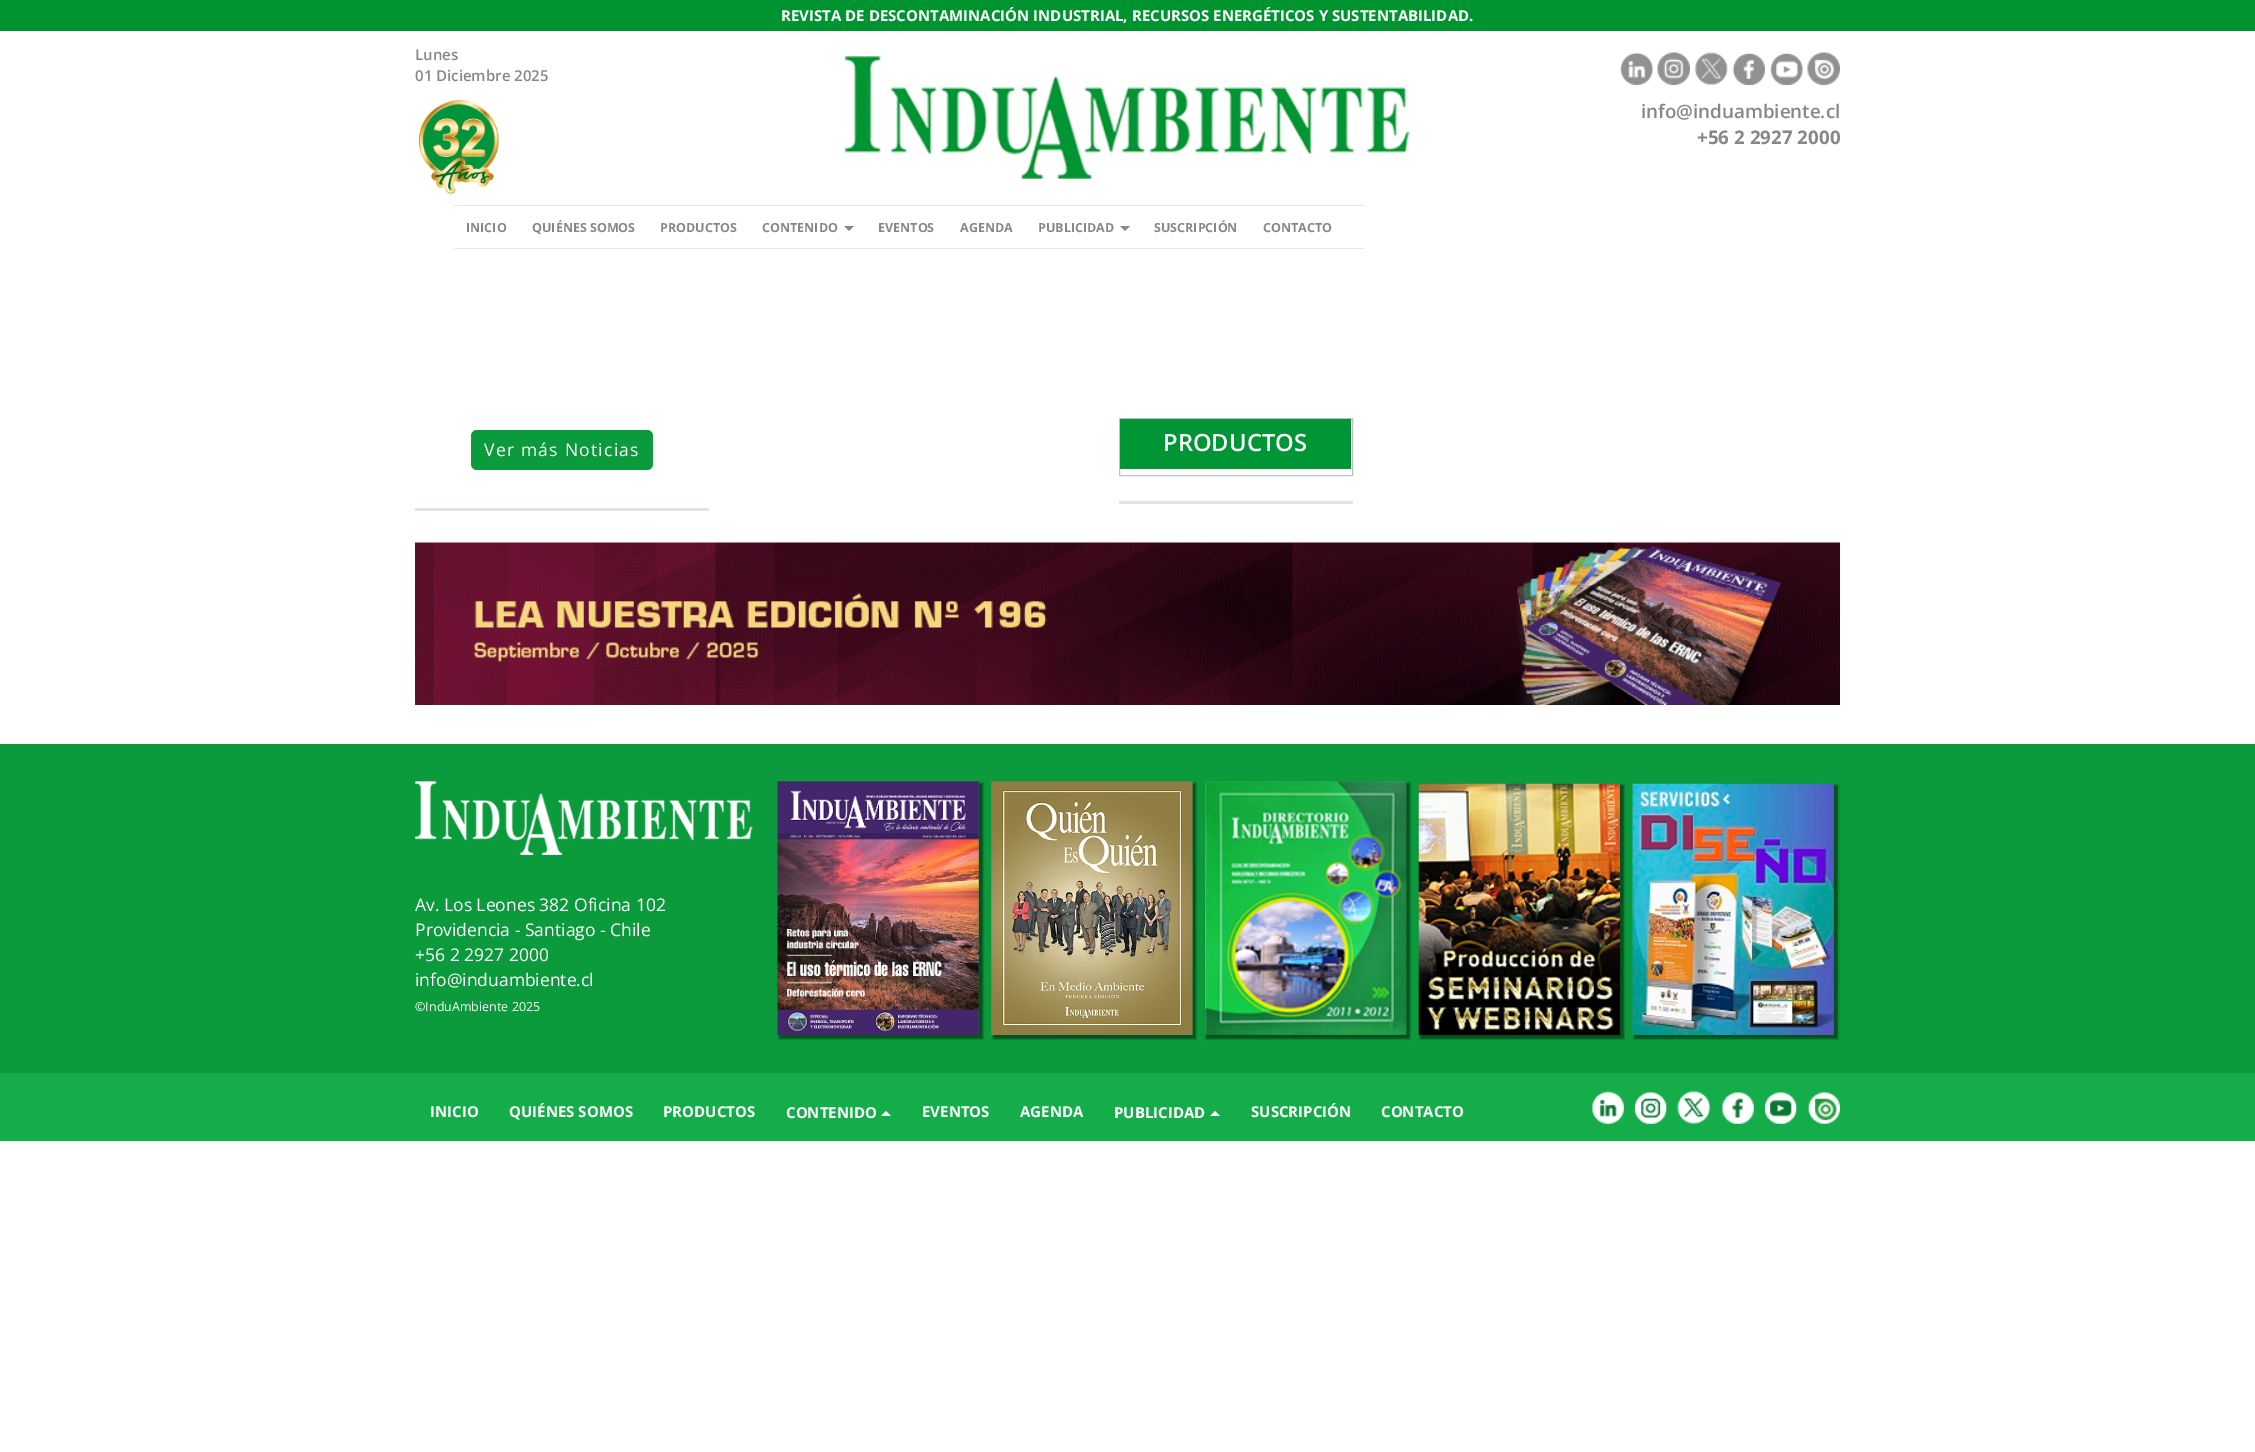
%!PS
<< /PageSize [2255 1452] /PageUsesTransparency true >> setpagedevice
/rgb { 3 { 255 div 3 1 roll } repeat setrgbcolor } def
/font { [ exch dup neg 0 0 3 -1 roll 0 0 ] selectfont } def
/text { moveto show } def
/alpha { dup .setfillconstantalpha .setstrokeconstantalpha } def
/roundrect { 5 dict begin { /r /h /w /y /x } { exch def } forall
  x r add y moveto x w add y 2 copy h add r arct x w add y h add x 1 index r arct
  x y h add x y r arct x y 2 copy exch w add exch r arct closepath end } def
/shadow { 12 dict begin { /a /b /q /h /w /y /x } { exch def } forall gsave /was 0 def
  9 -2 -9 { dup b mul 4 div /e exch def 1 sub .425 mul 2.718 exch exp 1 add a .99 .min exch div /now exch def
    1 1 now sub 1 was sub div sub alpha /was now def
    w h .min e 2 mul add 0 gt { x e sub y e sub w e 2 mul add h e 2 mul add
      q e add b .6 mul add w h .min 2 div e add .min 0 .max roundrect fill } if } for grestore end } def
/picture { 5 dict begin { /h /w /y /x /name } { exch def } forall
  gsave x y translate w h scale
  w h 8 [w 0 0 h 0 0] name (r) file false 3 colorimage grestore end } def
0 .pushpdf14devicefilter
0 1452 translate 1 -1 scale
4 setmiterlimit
255 255 255 rgb
0 0 2255 1452 rectfill
0 148 49 rgb
0 0 2255 31 rectfill
(img_01.rgb) 418 99 82 96 picture
(img_02.rgb) 845 56 565 123 picture
(img_03.rgb) 1620 52 33 33 picture
(img_04.rgb) 1657 52 33 33 picture
(img_05.rgb) 1695 52 33 33 picture
(img_06.rgb) 1732 53 33 32 picture
(img_07.rgb) 1770 53 33 32 picture
(img_08.rgb) 1807 52 33 33 picture
231 231 231 rgb
454 205 910 1 rectfill
454 248 910 1 rectfill
134 135 134 rgb
844 226 moveto 10 0 rlineto -5 5 rlineto closepath fill
1120 226 moveto 10 0 rlineto -5 5 rlineto closepath fill
11 154 60 rgb
471 430 182 40 6 roundrect fill
225 228 229 rgb
415 508 294 3 rectfill
192 192 193 rgb
1119.5 418.5 233 57 rectstroke
0 150 53 rgb
1120 419 231 50 rectfill
225 228 229 rgb
1119 501 234 3 rectfill
(img_09.rgb) 415 542 1425 163 picture
11 154 60 rgb
0 744 2255 329 rectfill
(img_10.rgb) 415 781 338 74 picture
0 0 0 rgb
779 783 204 256 0 1 0.5 shadow
(img_11.rgb) 777 781 202 254 picture
993 783 203 256 0 1 0.5 shadow
(img_12.rgb) 991 781 202 254 picture
1206 783 204 256 0 1 0.5 shadow
(img_13.rgb) 1205 781 202 254 picture
1420 785 204 254 0 1 0.5 shadow
(img_14.rgb) 1418 783 202 252 picture
1634 785 204 254 0 1 0.5 shadow
(img_15.rgb) 1632 783 202 252 picture
20 173 73 rgb
0 1073 2255 68 rectfill
255 255 255 rgb
891 1116 moveto -10 0 rlineto 5 -5 rlineto closepath fill
1220 1116 moveto -10 0 rlineto 5 -5 rlineto closepath fill
(img_16.rgb) 1592 1091 32 33 picture
(img_17.rgb) 1634 1092 33 32 picture
(img_18.rgb) 1677 1091 33 33 picture
(img_19.rgb) 1722 1092 32 32 picture
(img_20.rgb) 1764 1092 33 32 picture
(img_21.rgb) 1808 1092 32 32 picture
/OpenSans-Bold 15 font
(REVISTA DE DESCONTAMINACIÓN INDUSTRIAL, RECURSOS ENERGÉTICOS Y SUSTENTABILIDAD.) 781 21 text
/OpenSans-SemiBold 15 font
134 135 134 rgb
(Lunes) 415 60 text
(01 Diciembre 2025) 415 81 text
/OpenSans-SemiBold 18.75 font
(info@induambiente.cl) 1641 118 text
/OpenSans-Bold 18.75 font
(+56 2 2927 2000) 1697 144 text
/OpenSans-Bold 12.5 font
(INICIO) 466 232 text
(QUIÉNES SOMOS) 532 232 text
(PRODUCTOS) 660 232 text
(CONTENIDO) 762 232 text
(EVENTOS) 878 232 text
(AGENDA) 960 232 text
(PUBLICIDAD) 1038 232 text
(SUSCRIPCIÓN) 1154 232 text
(CONTACTO) 1263 232 text
/OpenSans-Regular 17.5 font
255 255 255 rgb
484 456 moveto 1.25 0 (Ver más Noticias) ashow
/OpenSans-SemiBold 23.75 font
(PRODUCTOS) 1163 451 text
/OpenSans-Regular 17.5 font
(Av. Los Leones 382 Oficina 102) 415 911 text
(Providencia - Santiago - Chile) 415 936 text
(+56 2 2927 2000) 415 961 text
(info@induambiente.cl) 415 986 text
/OpenSans-Regular 12.5 font
(©InduAmbiente 2025) 415 1011 text
/OpenSans-Bold 15 font
(INICIO) 430 1117 text
(QUIÉNES SOMOS) 509 1117 text
(PRODUCTOS) 663 1117 text
(CONTENIDO) 786 1118 text
(EVENTOS) 922 1117 text
(AGENDA) 1020 1117 text
(PUBLICIDAD) 1114 1118 text
(SUSCRIPCIÓN) 1251 1117 text
(CONTACTO) 1381 1117 text
.poppdf14devicefilter showpage
